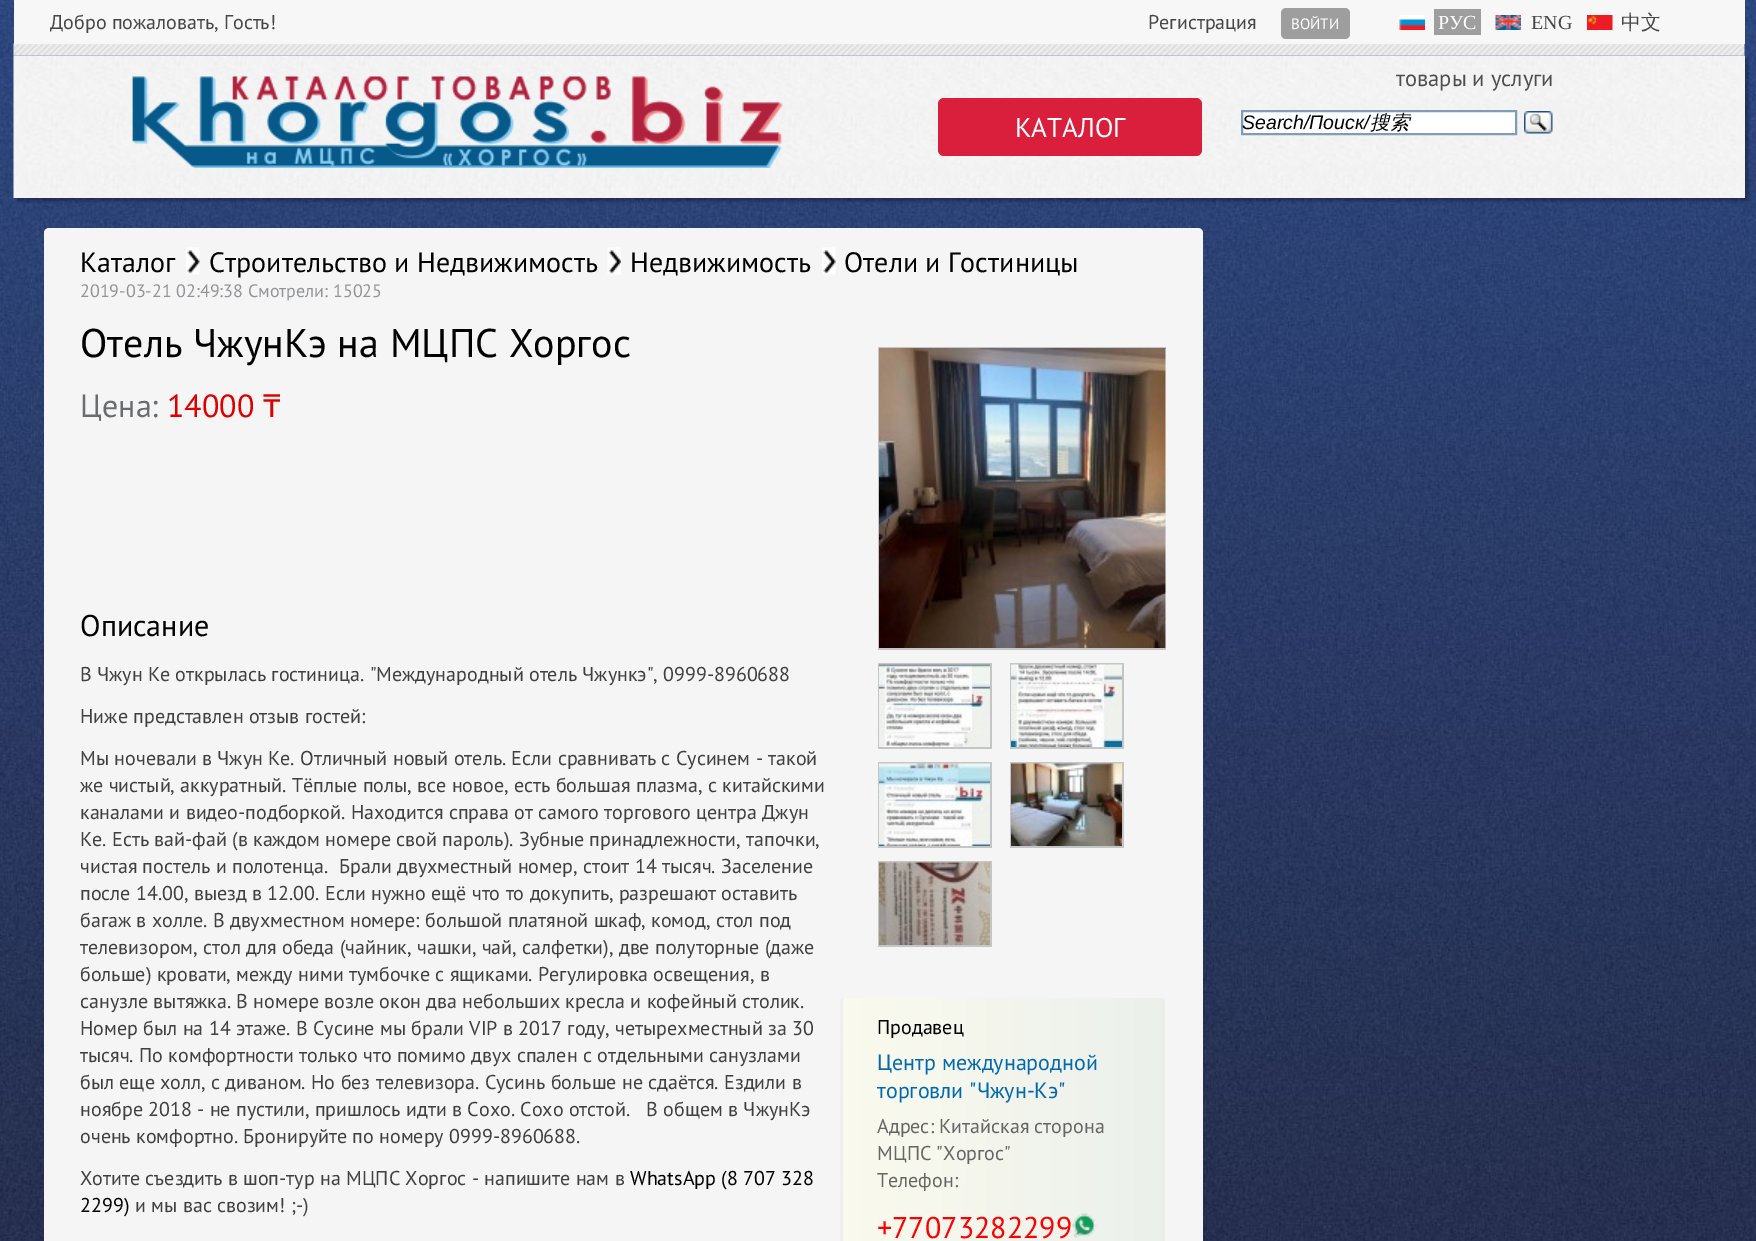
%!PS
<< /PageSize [1756 1241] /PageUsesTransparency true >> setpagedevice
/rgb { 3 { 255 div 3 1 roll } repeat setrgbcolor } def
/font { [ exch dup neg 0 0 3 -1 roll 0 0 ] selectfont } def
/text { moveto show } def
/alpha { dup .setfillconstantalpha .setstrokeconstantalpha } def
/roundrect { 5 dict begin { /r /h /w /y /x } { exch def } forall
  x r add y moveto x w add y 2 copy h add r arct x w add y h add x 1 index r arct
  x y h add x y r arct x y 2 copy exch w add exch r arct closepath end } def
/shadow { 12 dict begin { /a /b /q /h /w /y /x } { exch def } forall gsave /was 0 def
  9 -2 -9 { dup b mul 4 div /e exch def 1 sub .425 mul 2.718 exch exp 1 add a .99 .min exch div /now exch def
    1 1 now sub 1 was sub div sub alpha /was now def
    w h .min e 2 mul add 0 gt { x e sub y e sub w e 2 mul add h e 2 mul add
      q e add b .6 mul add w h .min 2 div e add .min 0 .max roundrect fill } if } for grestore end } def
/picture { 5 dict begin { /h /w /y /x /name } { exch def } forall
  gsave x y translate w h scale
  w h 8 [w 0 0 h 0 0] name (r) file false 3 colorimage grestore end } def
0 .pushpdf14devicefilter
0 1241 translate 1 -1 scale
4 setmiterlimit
255 255 255 rgb
0 0 1756 1241 rectfill
(img_01.rgb) 0 0 1756 1241 picture
(img_05.rgb) 13 43 1732 13 picture
247 247 247 rgb
14 0 1731 44 rectfill
158 158 158 rgb
1281 8 69 31 5 roundrect fill
(img_02.rgb) 1399 15 26 15 picture
1434 9 47 26 rectfill
(img_03.rgb) 1495 15 26 15 picture
(img_04.rgb) 1587 15 26 15 picture
0 0 0 rgb
17 59 1731 142 0 1.5 0.3 shadow
244 244 244 rgb
1744 56 1 142 rectfill
(img_06.rgb) 13 55 1732 143 picture
(img_07.rgb) 132 76 651 92 picture
217 31 59 rgb
938 98 264 58 6 roundrect fill
255 255 255 rgb
1242 111 moveto 274 0 rlineto 0 23 rlineto -274 0 rlineto closepath gsave fill grestore
127 157 185 rgb
2 setlinewidth
stroke
(img_08.rgb) 1524 111 29 23 picture
245 245 245 rgb
44 228 1159 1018 5 roundrect fill
(img_09.rgb) 186 247 14 28 picture
(img_10.rgb) 607 247 14 28 picture
(img_09.rgb) 822 247 14 28 picture
196 197 199 rgb
878 347 moveto 288 0 rlineto 0 2 rlineto -286 0 rlineto 0 299 rlineto 286 0 rlineto 0 2 rlineto -288 0 rlineto closepath fill
(img_11.rgb) 879 348 287 300 picture
878 663 114 86 rectfill
(img_12.rgb) 879 664 111 83 picture
1010 663 114 86 rectfill
(img_13.rgb) 1011 664 111 83 picture
878 762 114 86 rectfill
(img_14.rgb) 879 763 111 83 picture
1010 762 114 86 rectfill
(img_15.rgb) 1011 763 111 83 picture
878 861 114 86 rectfill
(img_16.rgb) 879 862 111 83 picture
(img_17.rgb) 840 998 325 243 picture
(img_18.rgb) 1072 1213 25 25 picture
/PTSans-Regular 20 font
71 71 71 rgb
(Добро пожаловать, Гость!) 50 29 text
(Регистрация) 1148 29 text
/PTSans-Regular 15 font
255 255 255 rgb
(ВОЙТИ) 1291 29 text
/LiberationSerif-Regular 20 font
(РУС) 1438 29 text
71 71 71 rgb
(ENG) 1531 29 text
/WenQuanYiZenHei-Medium 20 font
(中文) 1621 29 text
/PTSans-Regular 27 font
255 255 255 rgb
(КАТАЛОГ) 1015 137 text
/PTSans-Regular 22.5 font
78 78 78 rgb
(товары и услуги) 1396 86 text
/LiberationSans-Italic 19.5 font
0 0 0 rgb
(Search/Поиск/) 1242 129 text
/WenQuanYiZenHei-MediumItalic 19.5 font
(搜索) 1370 129 text
/PTSans-Regular 28 font
(Каталог) 80 272 text
(Строительство и Недвижимость) 209 272 text
(Недвижимость) 630 272 text
(Отели и Гостиницы) 844 272 text
/PTSans-Regular 18 font
146 148 151 rgb
(2019-03-21 02:49:38 Смотрели: 15025) 80 297 text
/PTSans-Regular 40 font
0 0 0 rgb
(Отель ЧжунКэ на МЦПС Хоргос) 80 357 text
/PTSans-Regular 32 font
105 109 112 rgb
(Цена:) 80 417 text
222 0 0 rgb
(14000) 167 417 text
/NotoSans-Regular 32 font
(₸) 263 417 text
/PTSans-Regular 30 font
0 0 0 rgb
(Описание) 80 636 text
/PTSans-Regular 20 font
64 64 64 rgb
(В Чжун Ке открылась гостиница. "Международный отель Чжункэ", 0999-8960688) 80 681 text
(Ниже представлен отзыв гостей:) 80 723 text
(Мы ночевали в Чжун Ке. Отличный новый отель. Если сравнивать с Сусинем - такой) 80 765 text
(же чистый, аккуратный. Тёплые полы, все новое, есть большая плазма, с китайскими) 80 792 text
(каналами и видео-подборкой. Находится справа от самого торгового центра Джун) 80 819 text
(Ке. Есть вай-фай \(в каждом номере свой пароль\). Зубные принадлежности, тапочки,) 80 846 text
(чистая постель и полотенца.  Брали двухместный номер, стоит 14 тысяч. Заселение) 80 873 text
(после 14.00, выезд в 12.00. Если нужно ещё что то докупить, разрешают оставить) 80 900 text
(багаж в холле. В двухместном номере: большой платяной шкаф, комод, стол под) 80 927 text
(телевизором, стол для обеда \(чайник, чашки, чай, салфетки\), две полуторные \(даже) 80 954 text
(больше\) кровати, между ними тумбочке с ящиками. Регулировка освещения, в) 80 981 text
(санузле вытяжка. В номере возле окон два небольших кресла и кофейный столик.) 80 1008 text
(Номер был на 14 этаже. В Сусине мы брали VIP в 2017 году, четырехместный за 30) 80 1035 text
(тысяч. По комфортности только что помимо двух спален с отдельными санузлами) 80 1062 text
(был еще холл, с диваном. Но без телевизора. Сусинь больше не сдаётся. Ездили в) 80 1089 text
(ноябре 2018 - не пустили, пришлось идти в Сохо. Сохо отстой.   В общем в ЧжунКэ) 80 1116 text
(очень комфортно. Бронируйте по номеру 0999-8960688.) 80 1143 text
(Хотите съездить в шоп-тур на МЦПС Хоргос - напишите нам в) 80 1185 text
0 0 0 rgb
(WhatsApp \(8 707 328) 630 1185 text
(2299\)) 80 1212 text
64 64 64 rgb
(и мы вас свозим! ;-\)) 135 1212 text
0 0 0 rgb
(Продавец) 877 1034 text
/PTSans-Regular 22 font
1 105 175 rgb
(Центр международной) 877 1070 text
(торговли "Чжун-Кэ") 877 1098 text
/PTSans-Regular 20 font
102 102 102 rgb
(Адрес: Китайская сторона) 877 1133 text
(МЦПС "Хоргос") 877 1160 text
(Телефон:) 877 1187 text
/PTSans-Regular 30 font
255 0 0 rgb
(+77073282299) 877 1238 text
.poppdf14devicefilter showpage
